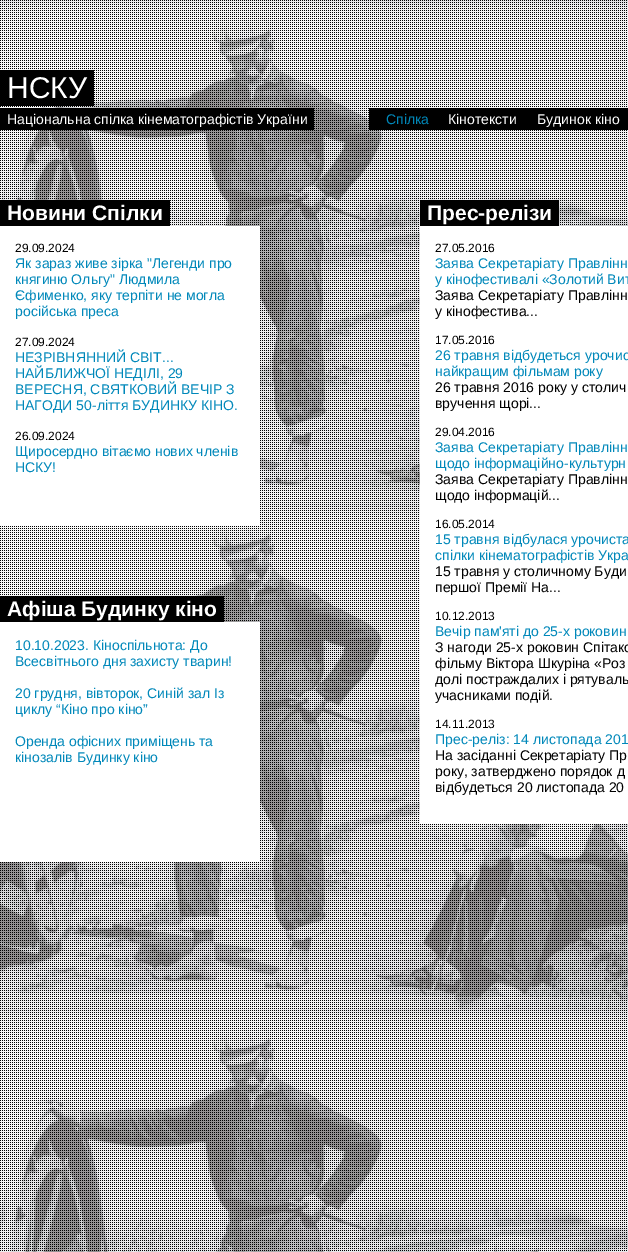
%!PS
<< /PageSize [628 1252] >> setpagedevice
/rgb { 3 { 255 div 3 1 roll } repeat setrgbcolor } def
/font { [ exch dup neg 0 0 3 -1 roll 0 0 ] selectfont } def
/text { moveto show } def
/picture { 5 dict begin { /h /w /y /x /name } { exch def } forall
  gsave x y translate w h scale
  w h 8 [w 0 0 h 0 0] name (r) file false 3 colorimage grestore end } def
0 1252 translate 1 -1 scale
4 setmiterlimit
255 255 255 rgb
0 0 628 1252 rectfill
(img_01.rgb) 0 0 628 1252 picture
(img_02.rgb) 0 0 627 1251 picture
0 0 0 rgb
0 70 94 36 rectfill
0 108 314 22 rectfill
369 108 259 22 rectfill
0 200 170 26 rectfill
255 255 255 rgb
0 226 260 300 rectfill
0 0 0 rgb
420 200 139 26 rectfill
255 255 255 rgb
420 226 208 598 rectfill
0 0 0 rgb
0 596 224 26 rectfill
255 255 255 rgb
0 622 260 240 rectfill
/LiberationSans-Regular 30 font
(НСКУ) 7 98 text
/LiberationSans-Regular 14 font
(Національна спілка кінематографістів України) 7 124 text
0 136 186 rgb
(Спілка) 386 124 text
255 255 255 rgb
(Кінотексти) 448 124 text
(Будинок кіно) 537 124 text
/LiberationSans-Bold 21 font
(Новини Спілки) 7 220 text
/LiberationSans-Regular 12 font
0 0 0 rgb
(29.09.2024) 15 252 text
/LiberationSans-Regular 14 font
0 136 186 rgb
(Як зараз живе зірка "Легенди про) 15 268 text
(княгиню Ольгу" Людмила) 15 284 text
(Єфименко, яку терпіти не могла) 15 300 text
(російська преса) 15 316 text
/LiberationSans-Regular 12 font
0 0 0 rgb
(27.09.2024) 15 346 text
/LiberationSans-Regular 14 font
0 136 186 rgb
(НЕЗРІВНЯННИЙ СВІТ...) 15 362 text
(НАЙБЛИЖЧОЇ НЕДІЛІ, 29) 15 378 text
(ВЕРЕСНЯ, СВЯТКОВИЙ ВЕЧІР З) 15 394 text
(НАГОДИ 50-ліття БУДИНКУ КІНО.) 15 410 text
/LiberationSans-Regular 12 font
0 0 0 rgb
(26.09.2024) 15 440 text
/LiberationSans-Regular 14 font
0 136 186 rgb
(Щиросердно вітаємо нових членів) 15 456 text
(НСКУ!) 15 472 text
/LiberationSans-Bold 21 font
255 255 255 rgb
(Прес-релізи) 427 220 text
/LiberationSans-Regular 12 font
0 0 0 rgb
(27.05.2016) 435 252 text
/LiberationSans-Regular 14 font
0 136 186 rgb
(Заява Секретаріату Правлінн) 435 268 text
(у кінофестивалі «Золотий Вит) 435 284 text
0 0 0 rgb
(Заява Секретаріату Правлінн) 435 300 text
(у кінофестива...) 435 316 text
/LiberationSans-Regular 12 font
(17.05.2016) 435 344 text
/LiberationSans-Regular 14 font
0 136 186 rgb
(26 травня відбудеться урочис) 435 360 text
(найкращим фільмам року) 435 376 text
0 0 0 rgb
(26 травня 2016 року у столич) 435 392 text
(вручення щорі...) 435 408 text
/LiberationSans-Regular 12 font
(29.04.2016) 435 436 text
/LiberationSans-Regular 14 font
0 136 186 rgb
(Заява Секретаріату Правлінн) 435 452 text
(щодо інформаційно-культурн) 435 468 text
0 0 0 rgb
(Заява Секретаріату Правлінн) 435 484 text
(щодо інформацій...) 435 500 text
/LiberationSans-Regular 12 font
(16.05.2014) 435 528 text
/LiberationSans-Regular 14 font
0 136 186 rgb
(15 травня відбулася урочиста) 435 544 text
(спілки кінематографістів Укра) 435 560 text
0 0 0 rgb
(15 травня у столичному Буди) 435 576 text
(першої Премії На...) 435 592 text
/LiberationSans-Regular 12 font
(10.12.2013) 435 620 text
/LiberationSans-Regular 14 font
0 136 186 rgb
(Вечір пам'яті до 25-х роковин) 435 636 text
0 0 0 rgb
(З нагоди 25-х роковин Спітакс) 435 652 text
(фільму Віктора Шкуріна «Роз) 435 668 text
(долі постраждалих і рятуваль) 435 684 text
(учасниками подій.) 435 700 text
/LiberationSans-Regular 12 font
(14.11.2013) 435 728 text
/LiberationSans-Regular 14 font
0 136 186 rgb
(Прес-реліз: 14 листопада 201) 435 744 text
0 0 0 rgb
(На засіданні Секретаріату Пр) 435 760 text
(року, затверджено порядок д) 435 776 text
(відбудеться 20 листопада 20) 435 792 text
/LiberationSans-Bold 21 font
255 255 255 rgb
(Афіша Будинку кіно) 7 616 text
/LiberationSans-Regular 14 font
0 136 186 rgb
(10.10.2023. Кіноспільнота: До) 15 650 text
(Всесвітнього дня захисту тварин!) 15 666 text
(20 грудня, вівторок, Синій зал Із) 15 698 text
(циклу “Кіно про кіно”) 15 714 text
(Оренда офісних приміщень та) 15 746 text
(кінозалів Будинку кіно) 15 762 text
showpage
